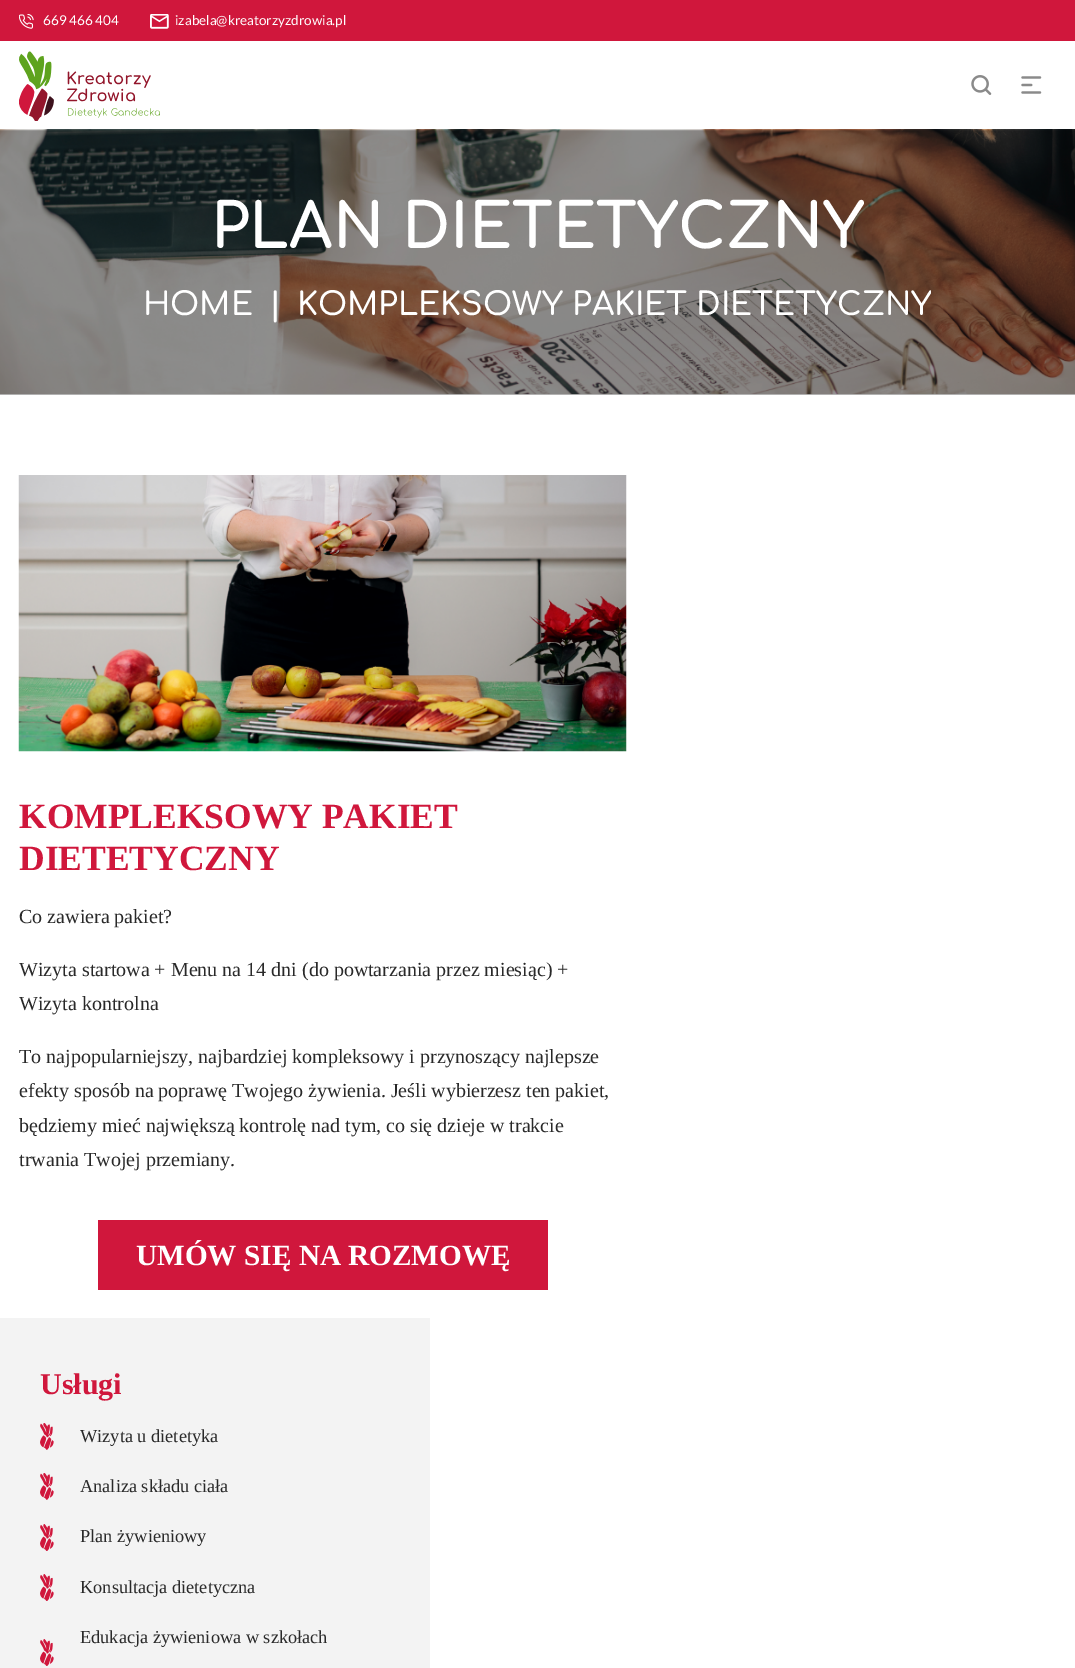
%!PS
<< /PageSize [1075 1668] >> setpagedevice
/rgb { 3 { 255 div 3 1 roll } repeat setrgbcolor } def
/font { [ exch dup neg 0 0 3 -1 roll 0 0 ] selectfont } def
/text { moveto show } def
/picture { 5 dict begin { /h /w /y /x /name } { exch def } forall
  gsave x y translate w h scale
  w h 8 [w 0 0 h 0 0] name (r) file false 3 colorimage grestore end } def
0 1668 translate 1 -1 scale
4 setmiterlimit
255 255 255 rgb
0 0 1075 1668 rectfill
208 23 60 rgb
0 0 1075 41 rectfill
(img_01.rgb) 19 14 15 15 picture
(img_02.rgb) 150 14 19 15 picture
(img_03.rgb) 19 51 141 70 picture
(img_04.rgb) 971 75 21 20 picture
(img_05.rgb) 1021 76 21 18 picture
(img_06.rgb) 0 129 1075 266 picture
(img_07.rgb) 18 475 609 277 picture
98 1220 450 70 rectfill
243 243 243 rgb
0 1318 430 350 rectfill
(img_08.rgb) 40 1423 14 27 picture
(img_08.rgb) 40 1473 14 27 picture
(img_09.rgb) 40 1524 14 27 picture
(img_09.rgb) 40 1574 14 27 picture
(img_09.rgb) 40 1639 14 27 picture
/Lato-Regular 13.5 font
255 255 255 rgb
(669 466 404) 43 25 text
(izabela@kreatorzyzdrowia.pl) 175 25 text
/Comfortaa-Bold 61.75 font
(PLAN DIETETYCZNY) 211 248 text
/Comfortaa-SemiBold 31.7 font
(HOME) 143 315 text
(|) 269 315 text
gsave
296 279 635 54 rectclip
(KOMPLEKSOWY PAKIET DIETETYCZNY) 297 315 text
grestore
/LiberationSerif-Bold 35.5 font
208 23 60 rgb
(KOMPLEKSOWY PAKIET) 19 828 text
(DIETETYCZNY) 19 870 text
/LiberationSerif-Regular 20 font
41 41 41 rgb
(Co zawiera pakiet?) 19 923 text
(Wizyta startowa + Menu na 14 dni \(do powtarzania przez miesiąc\) +) 19 976 text
(Wizyta kontrolna) 19 1010 text
(To najpopularniejszy, najbardziej kompleksowy i przynoszący najlepsze) 19 1063 text
(efekty sposób na poprawę Twojego żywienia. Jeśli wybierzesz ten pakiet,) 19 1097 text
(będziemy mieć największą kontrolę nad tym, co się dzieje w trakcie) 19 1132 text
(trwania Twojej przemiany.) 19 1166 text
/LiberationSerif-Bold 29.25 font
255 255 255 rgb
(UMÓW SIĘ NA ROZMOWĘ) 136 1265 text
/LiberationSerif-Bold 30 font
208 23 60 rgb
(Usługi) 40 1394 text
/LiberationSerif-Regular 18.3 font
41 41 41 rgb
(Wizyta u dietetyka) 80 1442 text
(Analiza składu ciała) 80 1492 text
(Plan żywieniowy) 80 1542 text
(Konsultacja dietetyczna) 80 1593 text
(Edukacja żywieniowa w szkołach) 80 1643 text
showpage
